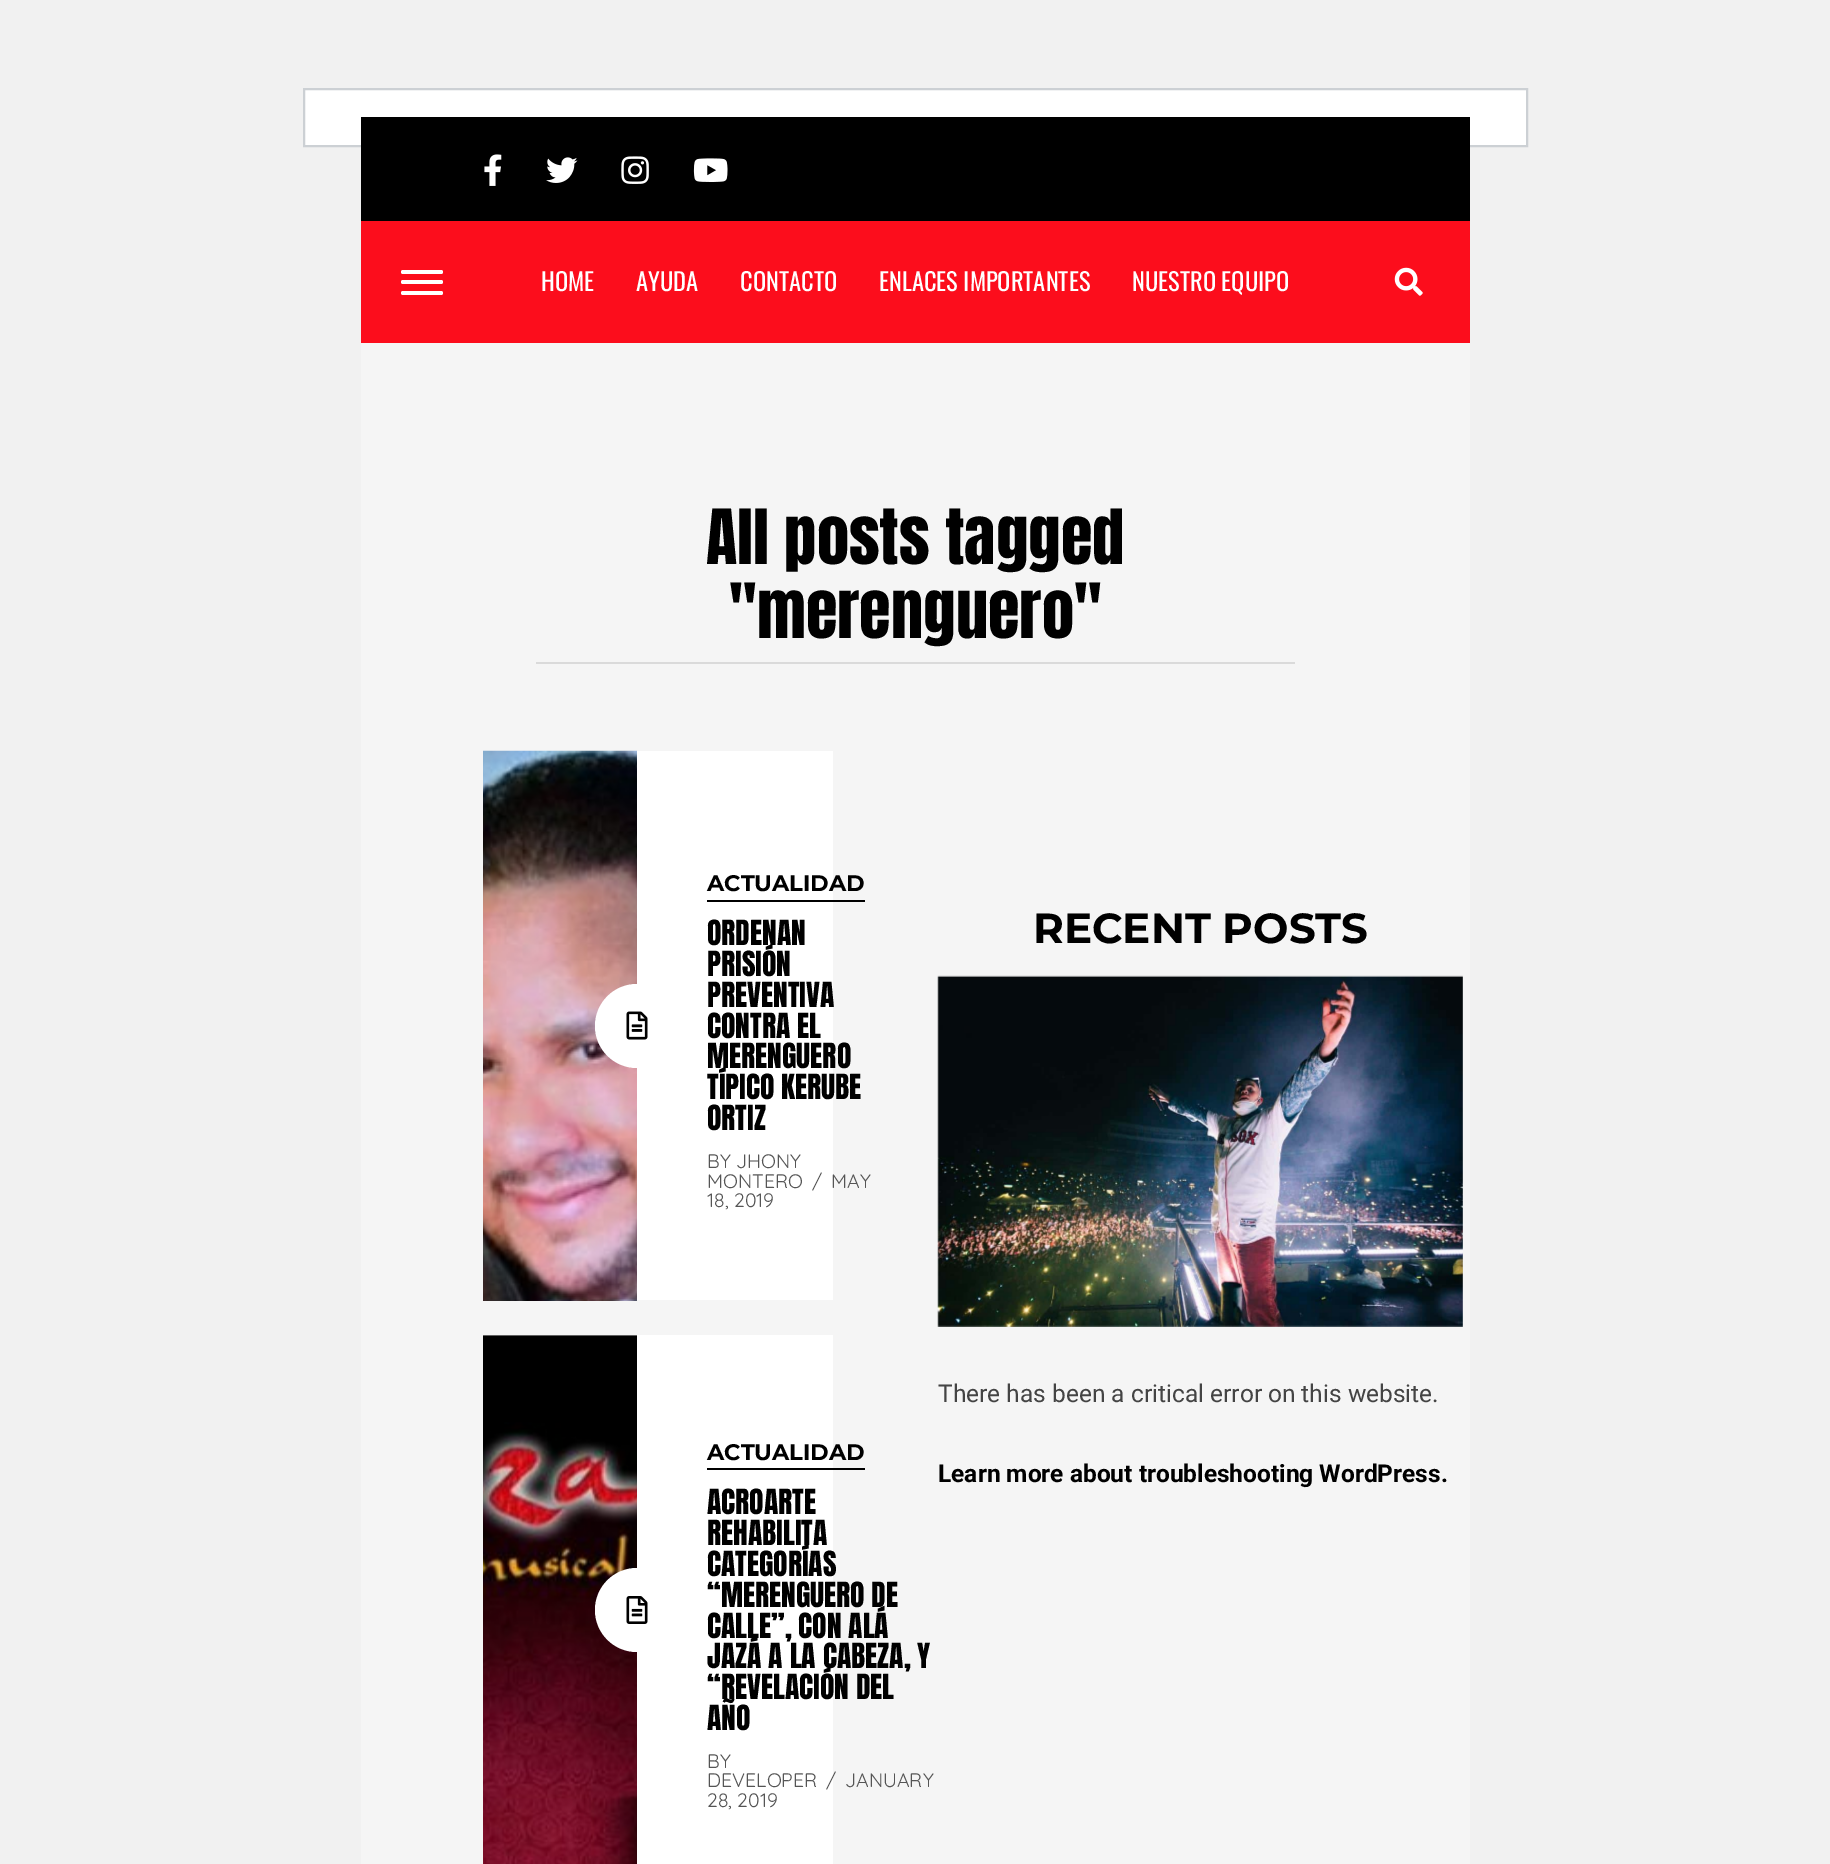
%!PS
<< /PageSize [1830 1864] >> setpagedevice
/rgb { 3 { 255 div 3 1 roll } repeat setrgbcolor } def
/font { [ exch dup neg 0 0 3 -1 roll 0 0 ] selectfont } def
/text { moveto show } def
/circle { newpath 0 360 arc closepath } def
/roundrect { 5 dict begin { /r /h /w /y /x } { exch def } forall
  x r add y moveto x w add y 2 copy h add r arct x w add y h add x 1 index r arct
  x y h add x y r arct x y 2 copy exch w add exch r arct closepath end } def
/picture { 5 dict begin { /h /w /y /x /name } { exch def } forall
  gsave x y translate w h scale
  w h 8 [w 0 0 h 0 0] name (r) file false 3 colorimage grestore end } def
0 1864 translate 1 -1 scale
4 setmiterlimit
241 241 241 rgb
0 0 1830 1864 rectfill
255 255 255 rgb
304 89 moveto 1223 0 rlineto 0 57 rlineto -1223 0 rlineto closepath gsave fill grestore
204 208 212 rgb
2 setlinewidth
stroke
0 0 0 rgb
361 117 1109 104 rectfill
(img_01.rgb) 484 154 18 32 picture
(img_02.rgb) 546 157 32 26 picture
(img_03.rgb) 621 156 28 28 picture
(img_04.rgb) 693 158 35 24 picture
252 13 28 rgb
361 221 1109 122 rectfill
255 255 255 rgb
401 270 42 4 2 roundrect fill
401 280 42 4 2 roundrect fill
401 291 42 4 2 roundrect fill
(img_05.rgb) 1394 267 29 29 picture
245 245 245 rgb
361 343 1109 1521 rectfill
218 218 218 rgb
536 662 759 2 rectfill
255 255 255 rgb
637 751 196 549 rectfill
(img_06.rgb) 483 750 154 551 picture
0 0 0 rgb
707 900 158 2 rectfill
255 255 255 rgb
637 1026 42 circle fill
(img_07.rgb) 626 1011 22 29 picture
483 1335 350 529 rectfill
(img_08.rgb) 483 1335 154 529 picture
0 0 0 rgb
707 1468 158 2 rectfill
255 255 255 rgb
637 1610 42 circle fill
(img_09.rgb) 626 1596 22 28 picture
(img_10.rgb) 937 975 526 352 picture
/Oswald-Regular 24.5 font
(HOME) 541 291 text
(AYUDA) 636 291 text
(CONTACTO) 740 291 text
(ENLACES IMPORTANTES) 879 291 text
(NUESTRO EQUIPO) 1132 291 text
/Anton-Regular 64.5 font
0 0 0 rgb
(All posts tagged) 706 564 text
("merenguero") 729 638 text
/Montserrat-Bold 22.5 font
(ACTUALIDAD) 707 891 text
/Anton-Regular 29.5 font
(ORDENAN) 707 945 text
(PRISIÓN) 707 976 text
(PREVENTIVA) 707 1007 text
(CONTRA EL) 707 1038 text
(MERENGUERO) 707 1068 text
(TÍPICO KERUBE) 707 1099 text
(ORTIZ) 707 1130 text
/Quicksand-Regular 19.5 font
85 85 85 rgb
(BY JHONY) 707 1168 text
(MONTERO) 707 1188 text
(/) 812 1188 text
(MAY) 831 1188 text
(18, 2019) 707 1207 text
/Montserrat-Bold 22.5 font
0 0 0 rgb
(ACTUALIDAD) 707 1460 text
/Anton-Regular 29.5 font
(ACROARTE) 707 1514 text
(REHABILITA) 707 1545 text
(CATEGORÍAS) 707 1576 text
(“MERENGUERO DE) 707 1607 text
(CALLE”, CON ALÁ) 707 1638 text
(JAZÁ A LA CABEZA, Y) 707 1668 text
(“REVELACIÓN DEL) 707 1699 text
(AÑO) 707 1730 text
/Quicksand-Regular 19.5 font
85 85 85 rgb
(BY) 707 1768 text
(DEVELOPER) 707 1787 text
(/) 826 1787 text
(JANUARY) 845 1787 text
(28, 2019) 707 1807 text
/Montserrat-Bold 42 font
0 0 0 rgb
(RECENT POSTS) 1033 943 text
/Roboto-Regular 24.5 font
68 68 68 rgb
(There has been a critical error on this website.) 938 1402 text
/Roboto-Bold 24.5 font
0 0 0 rgb
(Learn more about troubleshooting WordPress.) 938 1482 text
showpage
